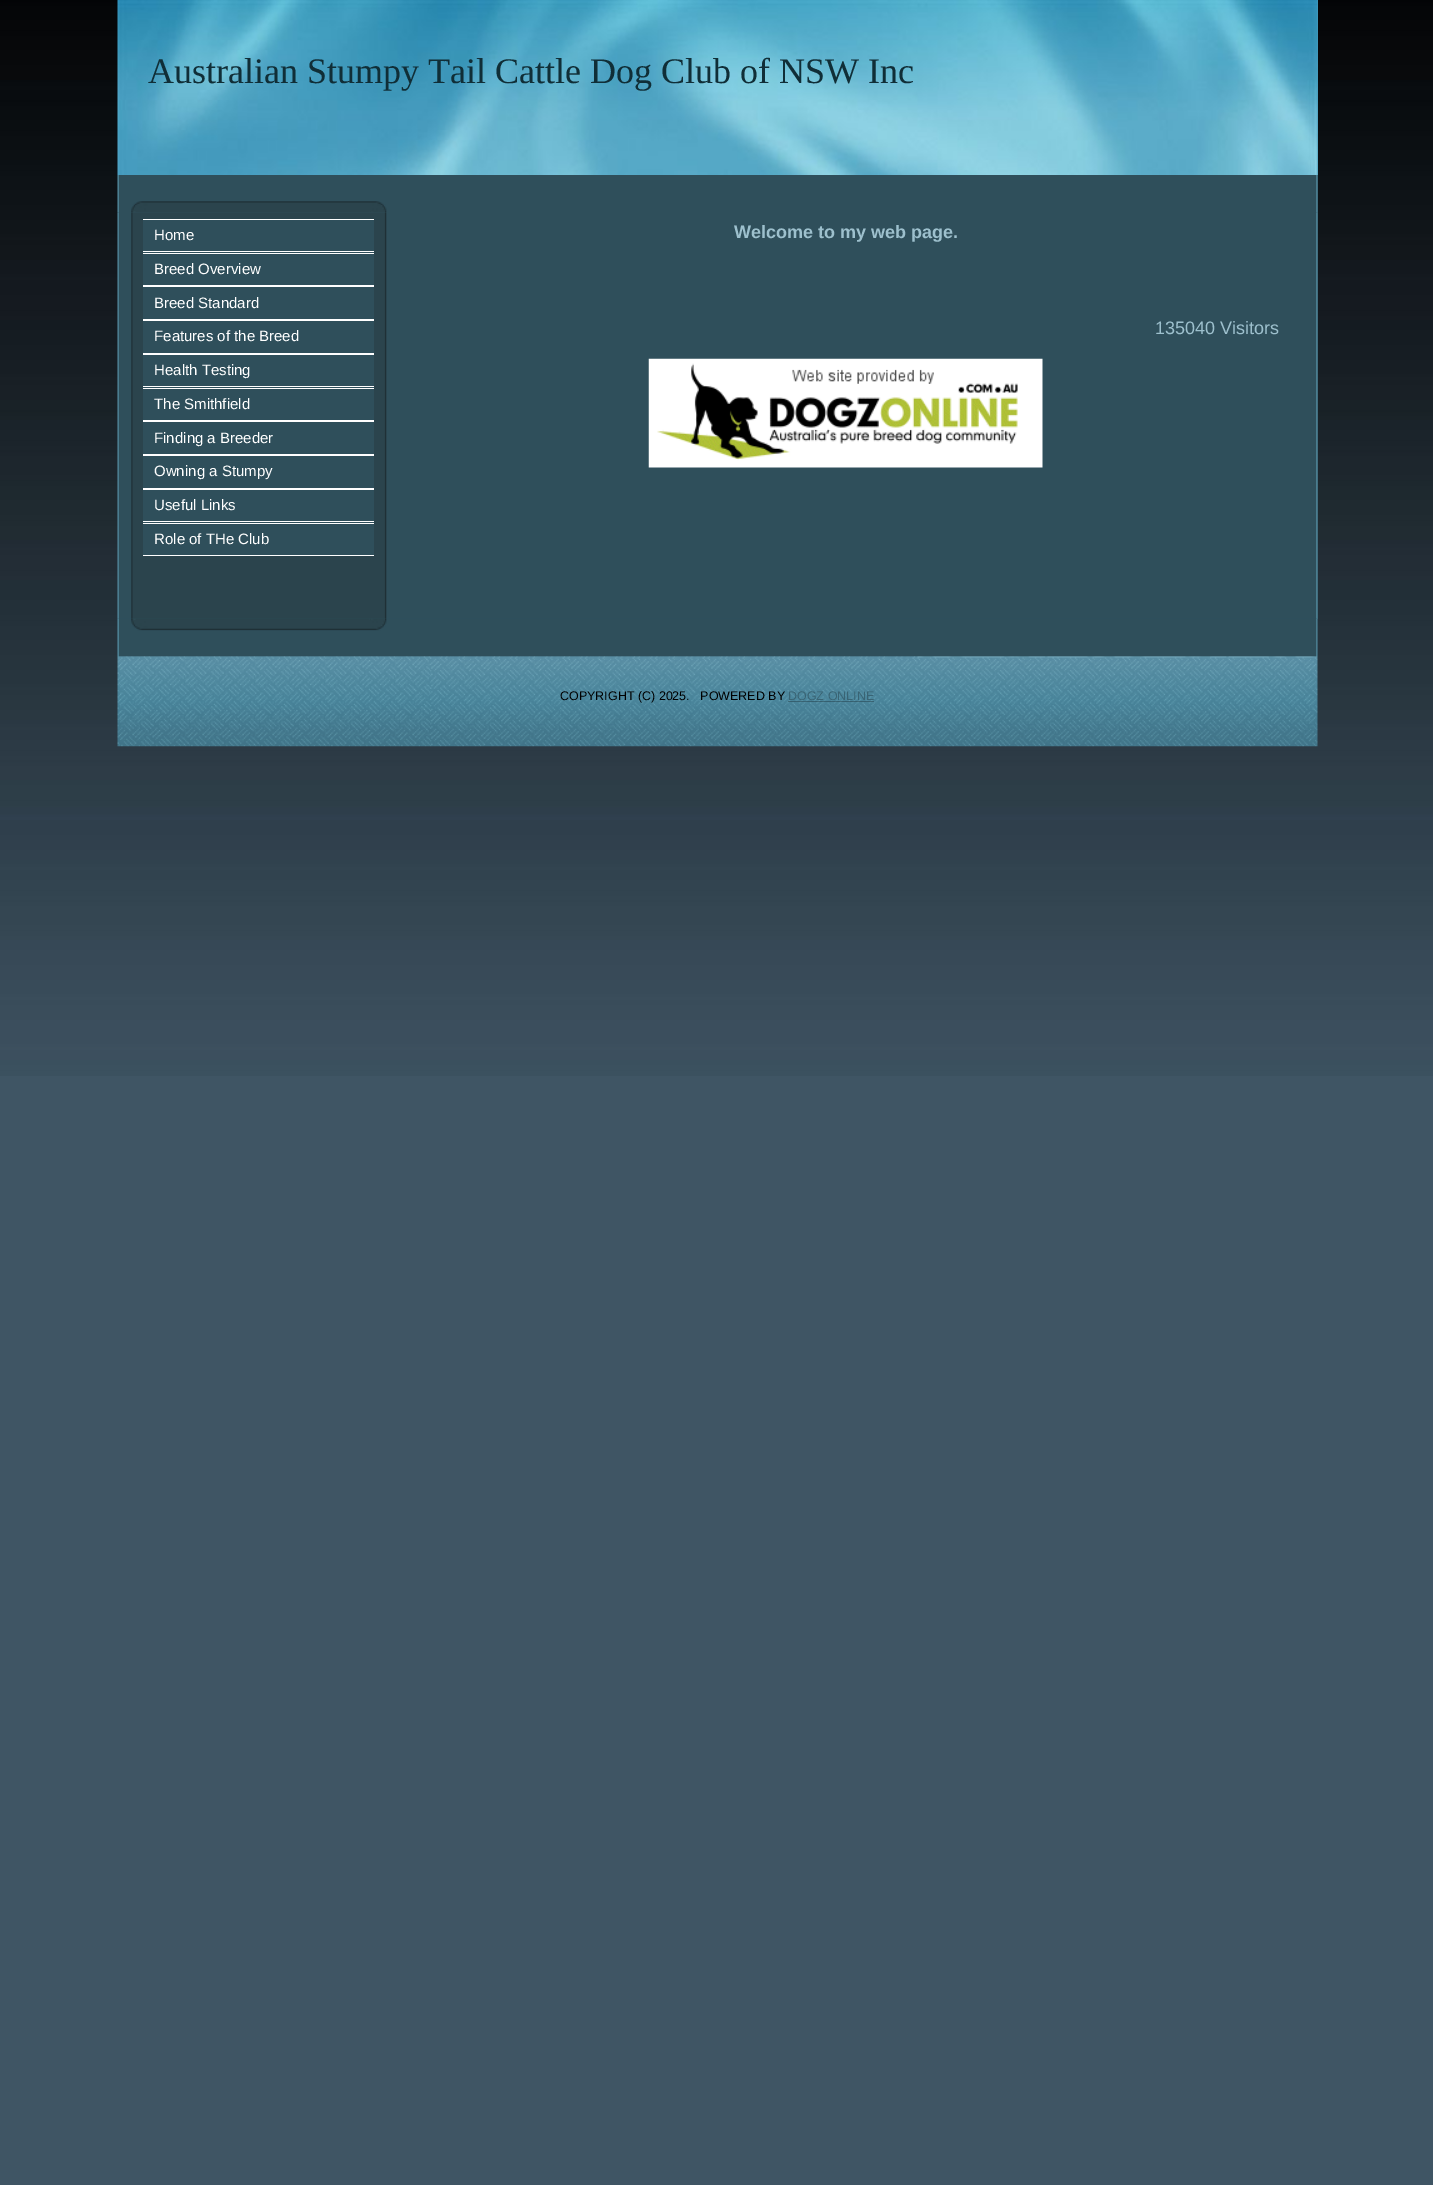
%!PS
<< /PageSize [1433 2185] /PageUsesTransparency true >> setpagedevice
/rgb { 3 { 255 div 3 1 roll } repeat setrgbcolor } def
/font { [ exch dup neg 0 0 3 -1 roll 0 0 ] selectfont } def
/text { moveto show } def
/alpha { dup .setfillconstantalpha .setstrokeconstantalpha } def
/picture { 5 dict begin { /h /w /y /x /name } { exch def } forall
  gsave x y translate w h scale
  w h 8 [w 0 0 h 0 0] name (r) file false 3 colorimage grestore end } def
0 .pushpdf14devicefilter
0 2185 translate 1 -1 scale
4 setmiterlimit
63 85 100 rgb
0 0 1433 2185 rectfill
(img_01.rgb) 0 0 1433 1076 picture
47 79 91 rgb
118 175 1200 444 rectfill
71 157 190 rgb
1317 0 1 175 rectfill
(img_02.rgb) 117 0 1201 175 picture
(img_03.rgb) 117 175 1201 38 picture
(img_04.rgb) 117 212 1201 407 picture
47 79 91 rgb
143 220 231 335 rectfill
255 255 255 rgb
143 219 231 1 rectfill
143 251 231 1 rectfill
143 253 231 1 rectfill
143 285 231 2 rectfill
143 319 231 2 rectfill
143 353 231 2 rectfill
143 386 231 1 rectfill
143 388 231 1 rectfill
143 420 231 2 rectfill
143 454 231 2 rectfill
143 488 231 2 rectfill
143 521 231 1 rectfill
143 523 231 1 rectfill
143 555 231 1 rectfill
(img_05.rgb) 648 358 395 110 picture
(img_06.rgb) 117 618 1201 129 picture
0.27 alpha
0 0 0 rgb
788 701 86 1 rectfill
/LiberationSerif-Regular 36 font
1 alpha
16 46 55 rgb
(Australian Stumpy Tail Cattle Dog Club of NSW Inc) 148 83 text
/LiberationSans-Regular 15 font
255 255 255 rgb
(Home) 154 240 text
(Breed Overview) 154 274 text
(Breed Standard) 154 308 text
(Features of the Breed) 154 341 text
(Health Testing) 154 375 text
(The Smithfield) 154 409 text
(Finding a Breeder) 154 443 text
(Owning a Stumpy) 154 476 text
(Useful Links) 154 510 text
(Role of THe Club) 154 544 text
/LiberationSans-Bold 18 font
157 192 205 rgb
(Welcome to my web page.) 734 238 text
/LiberationSans-Regular 18 font
(135040 Visitors) 1155 334 text
/LiberationSans-Regular 12.5 font
0 0 0 rgb
(COPYRIGHT \(C\) 2025.   POWERED BY) 560 700 text
57 100 116 rgb
(DOGZ ONLINE) 788 700 text
.poppdf14devicefilter showpage
